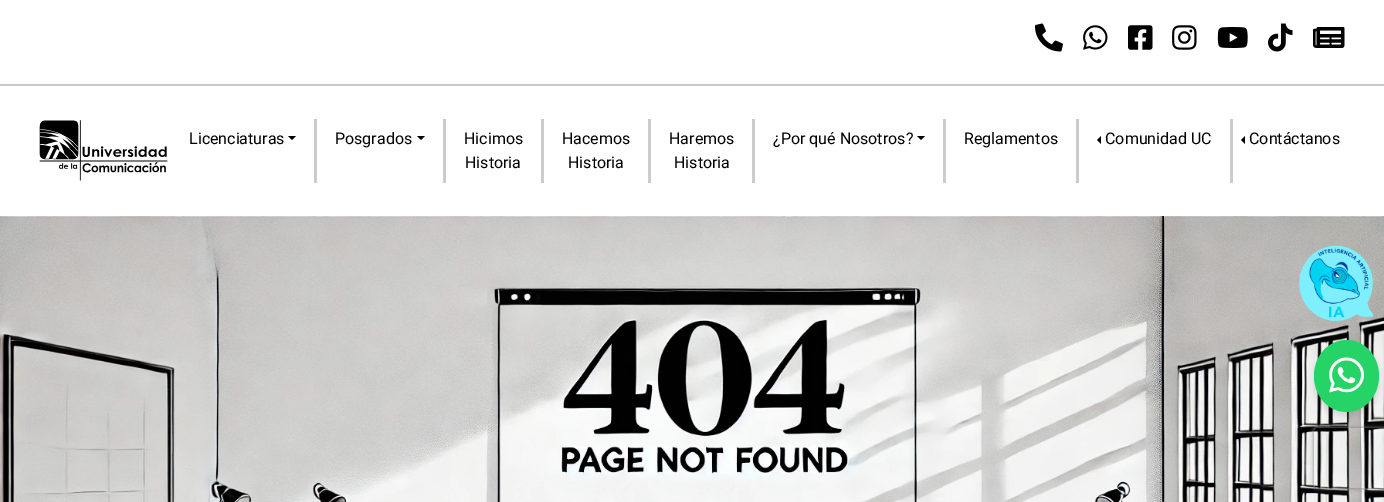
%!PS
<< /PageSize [1384 502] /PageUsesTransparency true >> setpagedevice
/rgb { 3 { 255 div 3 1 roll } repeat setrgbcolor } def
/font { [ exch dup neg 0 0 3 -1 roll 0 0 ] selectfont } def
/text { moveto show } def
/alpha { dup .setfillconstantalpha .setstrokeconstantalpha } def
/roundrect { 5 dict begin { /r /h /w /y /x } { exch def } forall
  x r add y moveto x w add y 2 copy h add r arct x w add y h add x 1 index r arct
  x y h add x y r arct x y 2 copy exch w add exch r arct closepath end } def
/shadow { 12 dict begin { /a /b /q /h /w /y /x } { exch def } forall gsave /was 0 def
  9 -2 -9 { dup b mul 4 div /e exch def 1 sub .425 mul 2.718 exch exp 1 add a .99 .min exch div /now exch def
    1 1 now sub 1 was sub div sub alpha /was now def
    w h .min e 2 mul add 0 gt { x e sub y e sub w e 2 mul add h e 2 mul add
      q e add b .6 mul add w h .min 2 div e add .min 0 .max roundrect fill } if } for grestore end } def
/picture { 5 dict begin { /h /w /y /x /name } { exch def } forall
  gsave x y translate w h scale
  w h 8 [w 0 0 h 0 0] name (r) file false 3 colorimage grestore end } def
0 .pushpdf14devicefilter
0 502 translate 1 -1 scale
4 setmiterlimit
255 255 255 rgb
0 0 1384 502 rectfill
(img_01.rgb) 1035 23 28 29 picture
(img_02.rgb) 1083 25 25 25 picture
(img_03.rgb) 1128 25 25 25 picture
(img_04.rgb) 1172 25 25 25 picture
(img_05.rgb) 1217 27 31 21 picture
(img_06.rgb) 1268 23 25 29 picture
(img_07.rgb) 1313 27 32 21 picture
200 201 202 rgb
0 84 1384 2 rectfill
(img_08.rgb) 39 120 129 61 picture
204 204 204 rgb
314 119 3 64 rectfill
0 0 0 rgb
288 136 moveto 8 0 rlineto -4 4 rlineto closepath fill
204 204 204 rgb
443 119 3 64 rectfill
0 0 0 rgb
417 136 moveto 8 0 rlineto -4 4 rlineto closepath fill
204 204 204 rgb
541 119 3 64 rectfill
648 119 3 64 rectfill
752 119 3 64 rectfill
943 119 3 64 rectfill
0 0 0 rgb
917 136 moveto 8 0 rlineto -4 4 rlineto closepath fill
204 204 204 rgb
1076 119 3 64 rectfill
1230 119 3 64 rectfill
0 0 0 rgb
1101 136 moveto 0 8 rlineto -4 -4 rlineto closepath fill
1245 136 moveto 0 8 rlineto -4 -4 rlineto closepath fill
(img_09.rgb) 0 216 1384 286 picture
(img_10.rgb) 1299 245 75 76 picture
1314 344 65 72 32.5 3 0.1 shadow
37 211 102 rgb
1346.5 340 moveto 18 0 32.5 16 32.5 36 rcurveto 0 20 -14.5 36 -32.5 36 rcurveto -18 0 -32.5 -16 -32.5 -36 rcurveto 0 -20 14.5 -36 32.5 -36 rcurveto closepath fill
(img_11.rgb) 1329 357 35 36 picture
gsave
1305 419 moveto 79 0 rlineto 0 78 rlineto -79 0 rlineto closepath 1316 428 moveto 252 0 rlineto 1 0 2 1 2 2 rcurveto 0 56 rlineto 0 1 -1 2 -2 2 rcurveto -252 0 rlineto -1 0 -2 -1 -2 -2 rcurveto 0 -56 rlineto 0 -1 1 -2 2 -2 rcurveto closepath eoclip newpath
128 128 128 rgb
1314 428 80 60 2 2.5 1 shadow
grestore
/Roboto-Regular 16 font
0 0 0 rgb
(Licenciaturas) 189 144 text
(Posgrados) 335 144 text
(Hicimos) 464 144 text
(Historia) 465 168 text
(Hacemos) 562 144 text
(Historia) 568 168 text
(Haremos) 669 144 text
(Historia) 674 168 text
(¿Por qué Nosotros?) 773 144 text
(Reglamentos) 964 144 text
(Comunidad UC) 1105 144 text
(Contáctanos) 1249 144 text
.poppdf14devicefilter showpage
